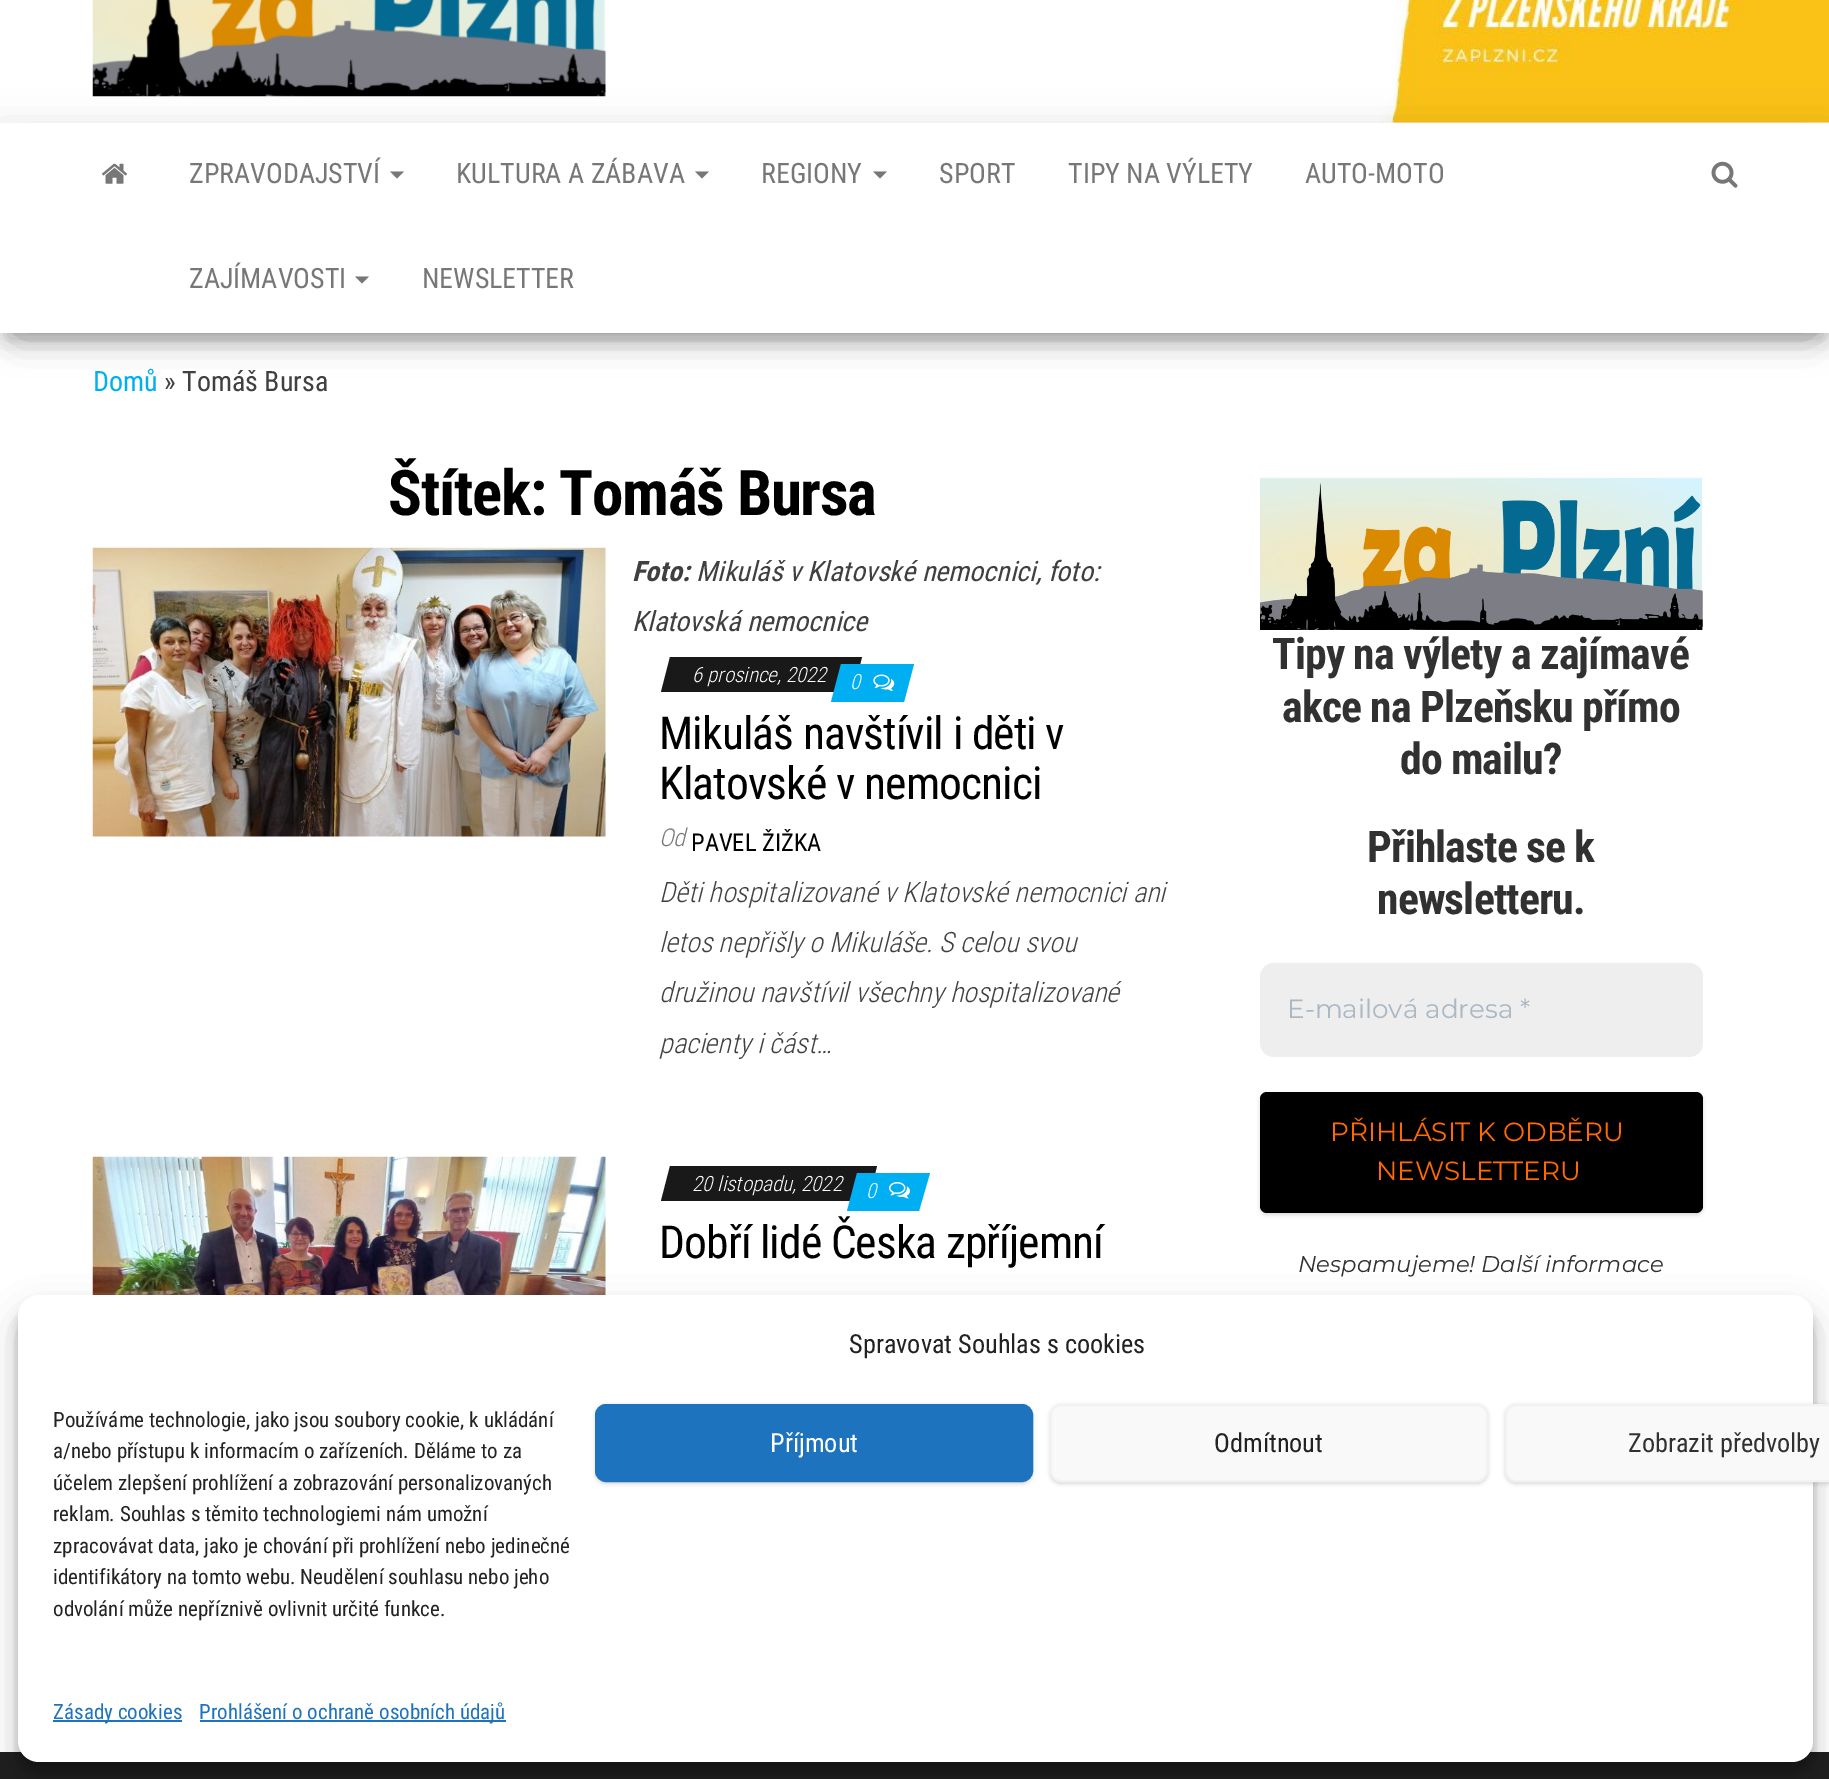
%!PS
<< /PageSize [1829 1779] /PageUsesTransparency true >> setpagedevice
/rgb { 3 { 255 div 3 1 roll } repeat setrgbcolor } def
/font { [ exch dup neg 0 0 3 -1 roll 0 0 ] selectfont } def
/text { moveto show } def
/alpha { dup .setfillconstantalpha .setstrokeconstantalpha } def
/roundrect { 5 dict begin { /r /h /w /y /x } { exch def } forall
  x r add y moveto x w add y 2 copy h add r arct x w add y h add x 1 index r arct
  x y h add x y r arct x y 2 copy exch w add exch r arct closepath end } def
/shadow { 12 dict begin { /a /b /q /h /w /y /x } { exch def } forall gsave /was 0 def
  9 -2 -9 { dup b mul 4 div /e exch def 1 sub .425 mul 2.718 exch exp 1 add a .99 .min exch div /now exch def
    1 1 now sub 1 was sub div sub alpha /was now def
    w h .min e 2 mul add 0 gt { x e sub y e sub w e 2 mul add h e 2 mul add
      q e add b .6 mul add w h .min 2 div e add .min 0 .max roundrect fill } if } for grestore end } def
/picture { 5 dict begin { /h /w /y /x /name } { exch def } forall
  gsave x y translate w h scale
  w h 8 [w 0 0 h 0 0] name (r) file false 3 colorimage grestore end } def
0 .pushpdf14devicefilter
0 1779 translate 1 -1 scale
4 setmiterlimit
255 255 255 rgb
0 0 1829 1779 rectfill
(img_01.rgb) 1381 0 448 123 picture
0 0 0 rgb
0 128 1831 210 0 17.5 0.12 shadow
(img_02.rgb) 92 0 514 97 picture
9 145 1813 193 0 9 0.2 shadow
21 161 1789 168 0 17.5 0.42 shadow
255 255 255 rgb
0 123 1829 210 rectfill
(img_03.rgb) 102 163 25 21 picture
119 119 119 rgb
390 171.5 moveto 14 0 rlineto -7 7 rlineto closepath fill
695 171.5 moveto 14 0 rlineto -7 7 rlineto closepath fill
873 171.5 moveto 14 0 rlineto -7 7 rlineto closepath fill
355 276.5 moveto 14 0 rlineto -7 7 rlineto closepath fill
(img_04.rgb) 1711 161 27 27 picture
(img_05.rgb) 92 547 514 290 picture
25 25 25 rgb
670 657 moveto 192 0 rlineto -9 35 rlineto -192 0 rlineto closepath fill
0 175 242 rgb
841 664 moveto 73 0 rlineto -10 38 rlineto -73 0 rlineto closepath fill
(img_06.rgb) 873 674 22 17 picture
(img_07.rgb) 92 1156 514 139 picture
25 25 25 rgb
670 1166 moveto 207 0 rlineto -9 35 rlineto -207 0 rlineto closepath fill
0 175 242 rgb
857 1173 moveto 73 0 rlineto -11 38 rlineto -72 0 rlineto closepath fill
(img_08.rgb) 889 1182 21 17 picture
(img_09.rgb) 1260 477 443 153 picture
238 238 238 rgb
1260 963 443 94 14 roundrect fill
0 0 0 rgb
1260 1094 443 121 7 2 0.15 shadow
1260 1092 443 121 7 roundrect fill
30 30 30 rgb
0 1752 1829 27 rectfill
0 0 0 rgb
18 1306 1795 467 21 5 0.23 shadow
18 1313 1795 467 21 17.5 0.19 shadow
255 255 255 rgb
18 1295 1795 467 21 roundrect fill
0 0 0 rgb
595 1405 438 79 11 2 0.15 shadow
30 115 190 rgb
596 1405 436 76 10 roundrect gsave fill grestore
2 setlinewidth
stroke
0 0 0 rgb
1050 1405 438 79 11 2 0.15 shadow
249 249 249 rgb
1051 1405 436 76 10 roundrect gsave fill grestore
242 242 242 rgb
stroke
0 0 0 rgb
1505 1405 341 79 11 2 0.15 shadow
249 249 249 rgb
1506 1405 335 76 10 roundrect gsave fill grestore
242 242 242 rgb
stroke
30 115 190 rgb
53 1720 129 2 rectfill
200 1720 306 2 rectfill
/RobotoCondensed-Regular 28 font
119 119 119 rgb
(ZPRAVODAJSTVÍ) 189 183 text
(KULTURA A ZÁBAVA) 456 183 text
(REGIONY) 761 183 text
(SPORT) 939 183 text
(TIPY NA VÝLETY) 1068 183 text
(AUTO-MOTO) 1305 183 text
(ZAJÍMAVOSTI) 189 288 text
(NEWSLETTER) 422 288 text
0 175 242 rgb
(Domů) 93 391 text
64 64 64 rgb
(» Tomáš Bursa) 164 391 text
/RobotoCondensed-Bold 63 font
0 0 0 rgb
388 515 moveto -1.25 0 (Štítek: Tomáš Bursa) ashow
/RobotoCondensed-BoldItalic 28 font
64 64 64 rgb
(Foto:) 632 581 text
/RobotoCondensed-Italic 28 font
(Mikuláš v Klatovské nemocnici, foto:) 696 581 text
(Klatovská nemocnice) 632 631 text
/RobotoCondensed-LightItalic 21 font
255 255 255 rgb
(6 prosince, 2022) 692 682 text
(0) 850 689 text
/RobotoCondensed-Regular 45.5 font
0 0 0 rgb
659 749 moveto -0.9 0 (Mikuláš navštívil i děti v) ashow
659 799 moveto -0.9 0 (Klatovské v nemocnici) ashow
/RobotoCondensed-LightItalic 24.5 font
119 119 119 rgb
(Od) 659 846 text
/RobotoCondensed-Regular 24.5 font
0 0 0 rgb
(PAVEL ŽIŽKA) 691 851 text
/RobotoCondensed-LightItalic 28 font
64 64 64 rgb
(Děti hospitalizované v Klatovské nemocnici ani) 659 902 text
(letos nepřišly o Mikuláše. S celou svou) 659 952 text
(družinou navštívil všechny hospitalizované) 659 1002 text
(pacienty i část…) 659 1053 text
/RobotoCondensed-LightItalic 21 font
255 255 255 rgb
(20 listopadu, 2022) 692 1191 text
(0) 866 1198 text
/RobotoCondensed-Regular 45.5 font
0 0 0 rgb
659 1258 moveto -0.9 0 (Dobří lidé Česka zpříjemní) ashow
/RobotoCondensed-Bold 43.75 font
49 49 49 rgb
1272 669 moveto -0.9 0 (Tipy na výlety a zajímavé) ashow
1282 722 moveto -0.9 0 (akce na Plzeňsku přímo) ashow
1400 774 moveto -0.9 0 (do mailu?) ashow
1367 862 moveto -0.9 0 (Přihlaste se k) ashow
1377 914 moveto -0.9 0 (newsletteru.) ashow
/Montserrat-Regular 26.25 font
171 184 195 rgb
(E-mailová adresa *) 1287 1018 text
255 105 0 rgb
(PŘIHLÁSIT K ODBĚRU) 1330 1141 text
(NEWSLETTERU) 1376 1180 text
/Montserrat-Italic 22.75 font
49 49 49 rgb
(Nespamujeme! Další informace) 1298 1272 text
/RobotoCondensed-Regular 26.25 font
34 34 34 rgb
(Spravovat Souhlas s cookies) 849 1353 text
/RobotoCondensed-Regular 21 font
(Používáme technologie, jako jsou soubory cookie, k ukládání) 53 1427 text
(a/nebo přístupu k informacím o zařízeních. Děláme to za) 53 1458 text
(účelem zlepšení prohlížení a zobrazování personalizovaných) 53 1490 text
(reklam. Souhlas s těmito technologiemi nám umožní) 53 1521 text
(zpracovávat data, jako je chování při prohlížení nebo jedinečné) 53 1553 text
(identifikátory na tomto webu. Neudělení souhlasu nebo jeho) 53 1584 text
(odvolání může nepříznivě ovlivnit určité funkce.) 53 1616 text
/RobotoCondensed-Regular 26.25 font
255 255 255 rgb
(Příjmout) 770 1452 text
34 34 34 rgb
(Odmítnout) 1214 1452 text
49 49 49 rgb
(Zobrazit předvolby) 1628 1452 text
/RobotoCondensed-Regular 21 font
30 115 190 rgb
(Zásady cookies) 53 1719 text
(Prohlášení o ochraně osobních údajů) 199 1719 text
.poppdf14devicefilter showpage
